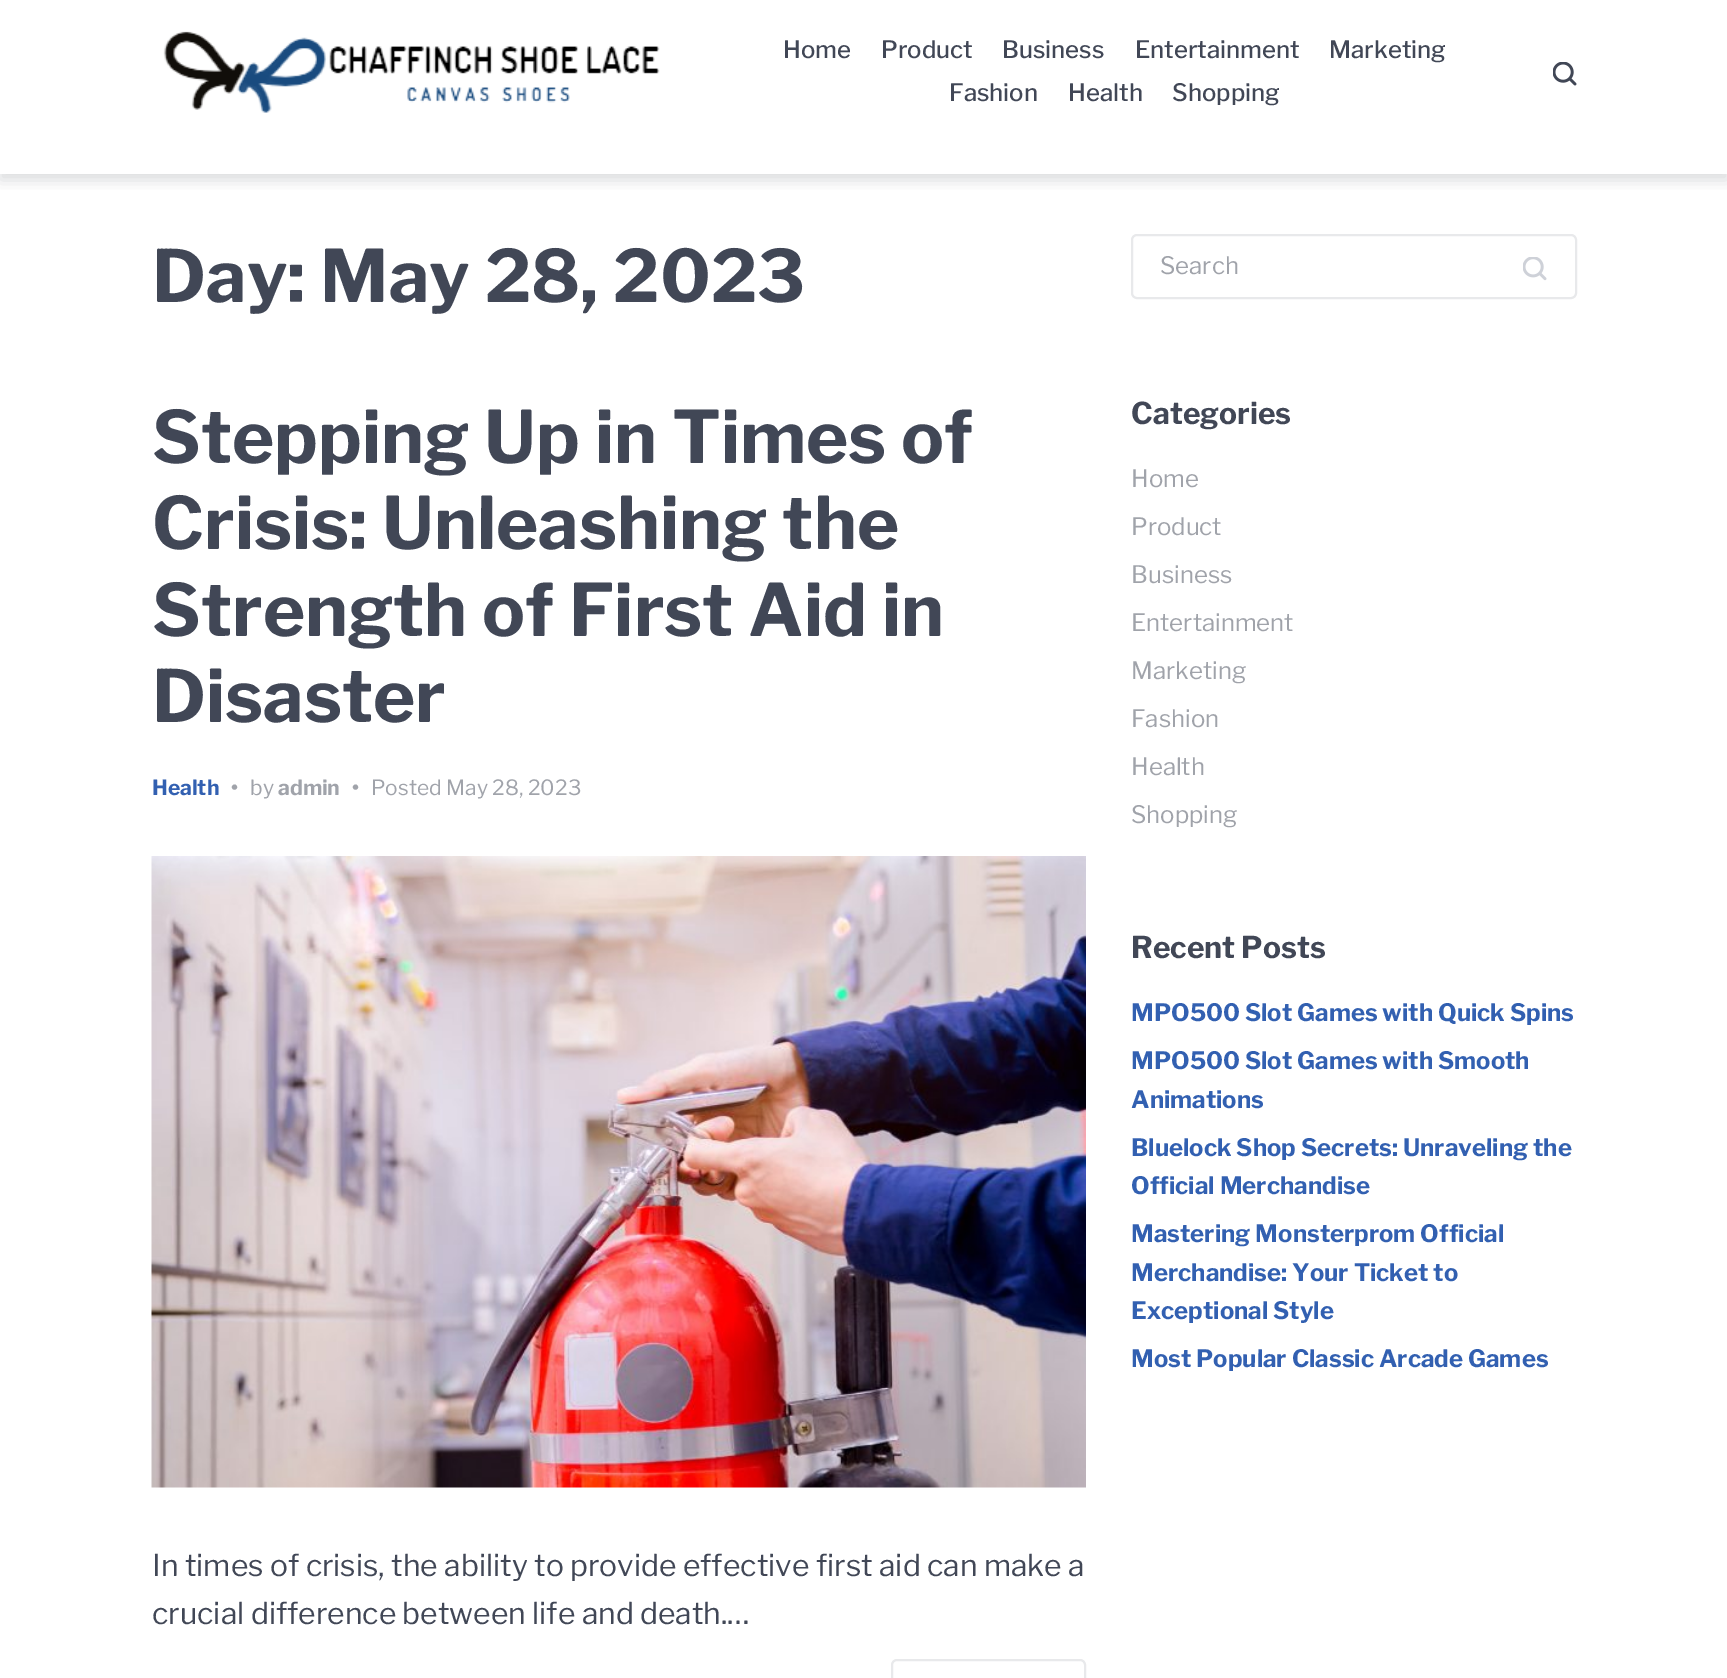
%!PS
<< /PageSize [1727 1678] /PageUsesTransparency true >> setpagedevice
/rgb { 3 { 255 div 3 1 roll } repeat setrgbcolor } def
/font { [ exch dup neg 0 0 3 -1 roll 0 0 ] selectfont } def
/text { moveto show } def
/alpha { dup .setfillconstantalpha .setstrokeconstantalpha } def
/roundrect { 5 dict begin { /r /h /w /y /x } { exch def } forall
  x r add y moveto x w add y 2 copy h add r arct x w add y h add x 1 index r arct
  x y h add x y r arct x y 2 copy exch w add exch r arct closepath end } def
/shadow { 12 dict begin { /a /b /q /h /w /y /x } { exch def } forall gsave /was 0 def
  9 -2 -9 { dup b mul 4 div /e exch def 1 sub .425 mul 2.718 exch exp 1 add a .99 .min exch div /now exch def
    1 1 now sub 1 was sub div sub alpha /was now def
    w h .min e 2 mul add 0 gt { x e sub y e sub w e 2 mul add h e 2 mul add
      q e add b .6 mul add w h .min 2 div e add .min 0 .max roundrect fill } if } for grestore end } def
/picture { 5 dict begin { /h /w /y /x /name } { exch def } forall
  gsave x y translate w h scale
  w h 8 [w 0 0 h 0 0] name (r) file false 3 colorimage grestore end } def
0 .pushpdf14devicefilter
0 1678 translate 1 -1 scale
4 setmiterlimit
255 255 255 rgb
0 0 1727 1678 rectfill
gsave
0 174 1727 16 rectclip
65 71 86 rgb
0 -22 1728 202 0 7.5 0.2 shadow
grestore
(img_01.rgb) 163 31 497 82 picture
(img_02.rgb) 1553 62 24 24 picture
(img_03.rgb) 151 856 935 632 picture
232 233 235 rgb
2 setlinewidth
892 1660 193 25 5 roundrect stroke
1132 235 444 63 5 roundrect stroke
(img_04.rgb) 1523 257 24 24 picture
/LibreFranklin-Medium 24 font
65 71 86 rgb
(Home) 783 58 text
(Product) 881 58 text
(Business) 1002 58 text
(Entertainment) 1135 58 text
(Marketing) 1329 58 text
(Fashion) 949 101 text
(Health) 1068 101 text
(Shopping) 1172 101 text
/LibreFranklin-Bold 72 font
(Day: May 28, 2023) 152 302 text
(Stepping Up in Times of) 152 463 text
(Crisis: Unleashing the) 152 549 text
(Strength of First Aid in) 152 636 text
(Disaster) 152 722 text
/LibreFranklin-Bold 21 font
50 96 177 rgb
(Health) 152 795 text
160 163 170 rgb
(•) 231 795 text
/LibreFranklin-Regular 21 font
(by) 250 795 text
/LibreFranklin-Bold 21 font
(admin) 278 795 text
(•) 352 795 text
/LibreFranklin-Regular 21 font
(Posted May 28, 2023) 371 795 text
/LibreFranklin-Regular 30 font
65 71 86 rgb
(In times of crisis, the ability to provide effective first aid can make a) 152 1576 text
(crucial difference between life and death.…) 152 1624 text
/LibreFranklin-Regular 24 font
160 163 170 rgb
(Search) 1160 274 text
/LibreFranklin-Bold 30 font
65 71 86 rgb
(Categories) 1131 424 text
/LibreFranklin-Regular 24 font
160 163 170 rgb
(Home) 1131 487 text
(Product) 1131 535 text
(Business) 1131 583 text
(Entertainment) 1131 631 text
(Marketing) 1131 679 text
(Fashion) 1131 727 text
(Health) 1131 775 text
(Shopping) 1131 823 text
/LibreFranklin-Bold 30 font
65 71 86 rgb
(Recent Posts) 1131 958 text
/LibreFranklin-Bold 24 font
50 96 177 rgb
(MPO500 Slot Games with Quick Spins) 1131 1021 text
(MPO500 Slot Games with Smooth) 1131 1069 text
(Animations) 1131 1108 text
(Bluelock Shop Secrets: Unraveling the) 1131 1156 text
(Official Merchandise) 1131 1194 text
(Mastering Monsterprom Official) 1131 1242 text
(Merchandise: Your Ticket to) 1131 1281 text
(Exceptional Style) 1131 1319 text
(Most Popular Classic Arcade Games) 1131 1367 text
.poppdf14devicefilter showpage
